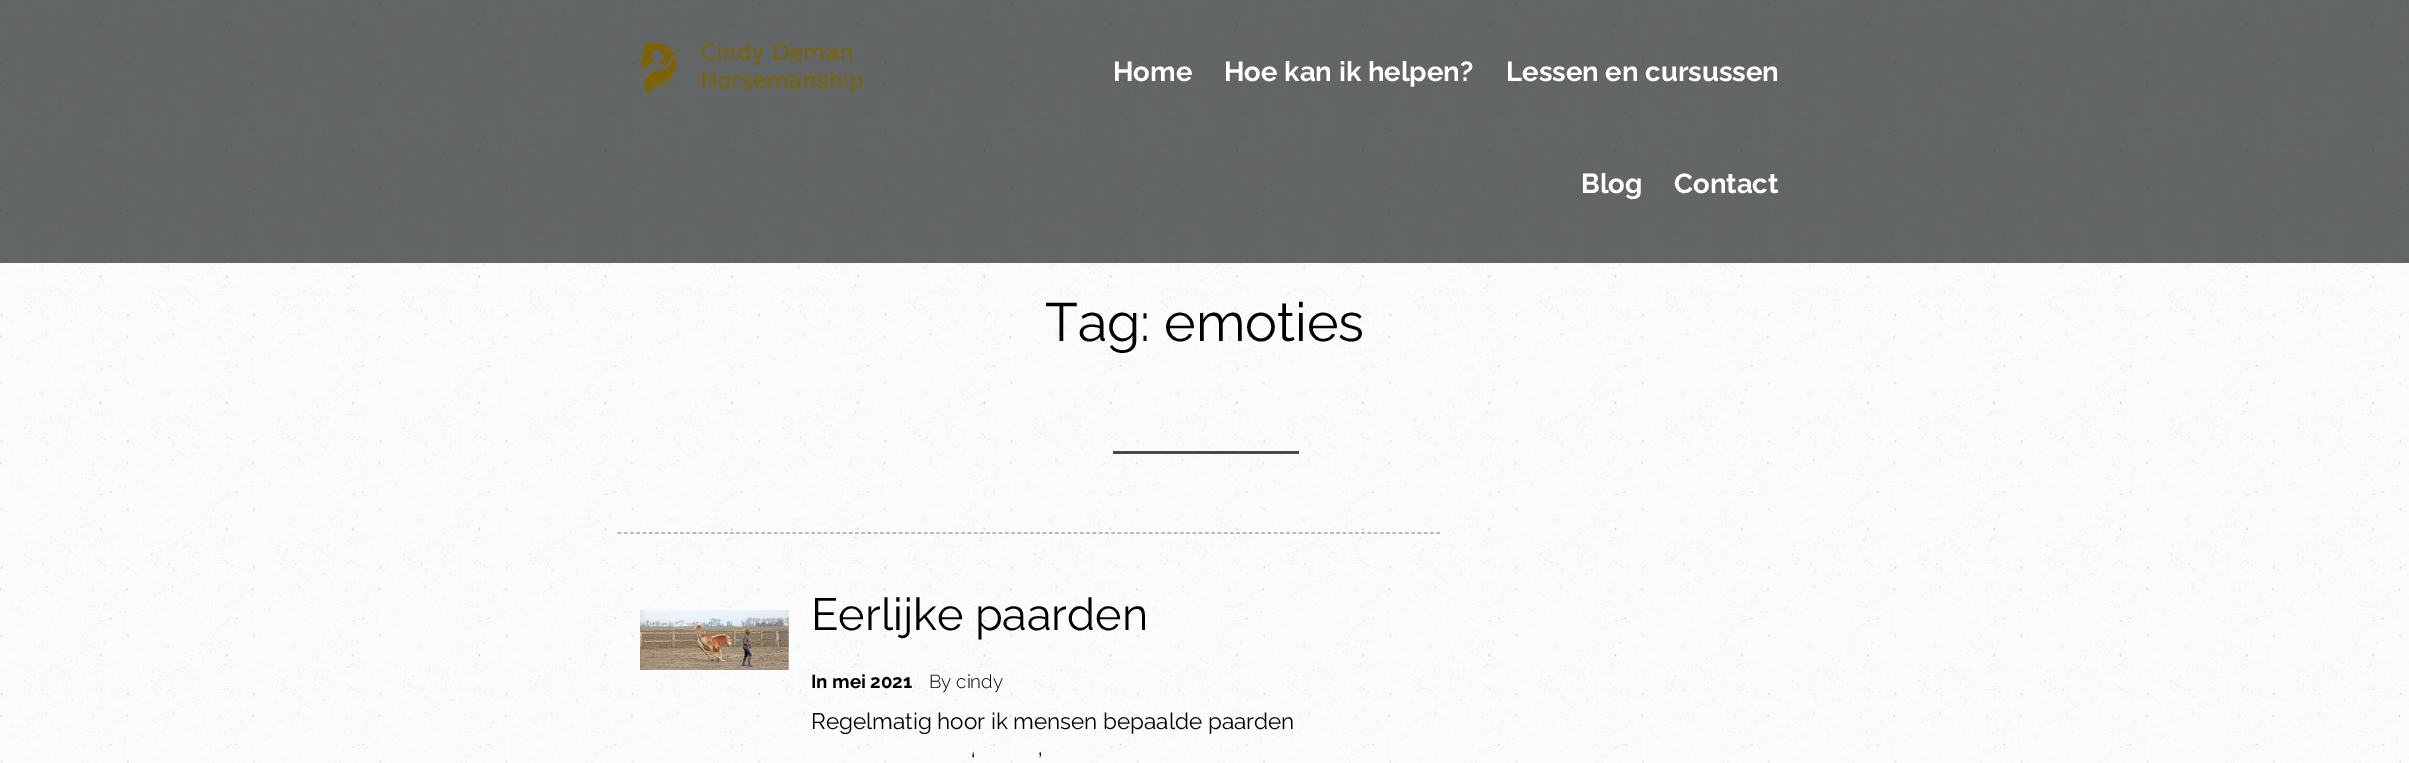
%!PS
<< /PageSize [2409 763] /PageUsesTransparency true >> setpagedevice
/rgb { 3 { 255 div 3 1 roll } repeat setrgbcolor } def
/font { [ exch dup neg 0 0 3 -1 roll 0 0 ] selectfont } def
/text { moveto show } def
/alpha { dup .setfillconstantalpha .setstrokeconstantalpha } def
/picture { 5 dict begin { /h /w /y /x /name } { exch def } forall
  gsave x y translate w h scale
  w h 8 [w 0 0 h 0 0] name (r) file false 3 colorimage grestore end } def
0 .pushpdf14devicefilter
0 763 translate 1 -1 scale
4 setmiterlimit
255 255 255 rgb
0 0 2409 763 rectfill
(img_01.rgb) 0 0 2409 763 picture
0.7 alpha
34 38 38 rgb
0 0 2409 263 rectfill
1 alpha
(img_02.rgb) 640 42 223 54 picture
67 75 82 rgb
1113 451 186 3 rectfill
175 159 140 rgb
1.2 setlinewidth
[3.75 2.5] 0 setdash
617.5 533 moveto 822.5 0 rlineto stroke
(img_03.rgb) 640 610 149 60 picture
/Raleway-Bold 27.5 font
255 255 255 rgb
(Home) 1113 81 text
(Hoe kan ik helpen?) 1224 81 text
(Lessen en cursussen) 1506 81 text
(Blog) 1581 193 text
(Contact) 1674 193 text
/Raleway-Thin 53.75 font
0 0 0 rgb
(Tag: emoties) 1045 341 text
/Raleway-Thin 45 font
(Eerlijke paarden) 811 630 text
/Raleway-Bold 18.75 font
(In mei 2021) 811 688 text
/Raleway-Light 18.75 font
(By cindy) 929 688 text
/Raleway-Thin 22.5 font
(Regelmatig hoor ik mensen bepaalde paarden) 811 729 text
(‘) 971 769 text
(’) 1038 769 text
.poppdf14devicefilter showpage
